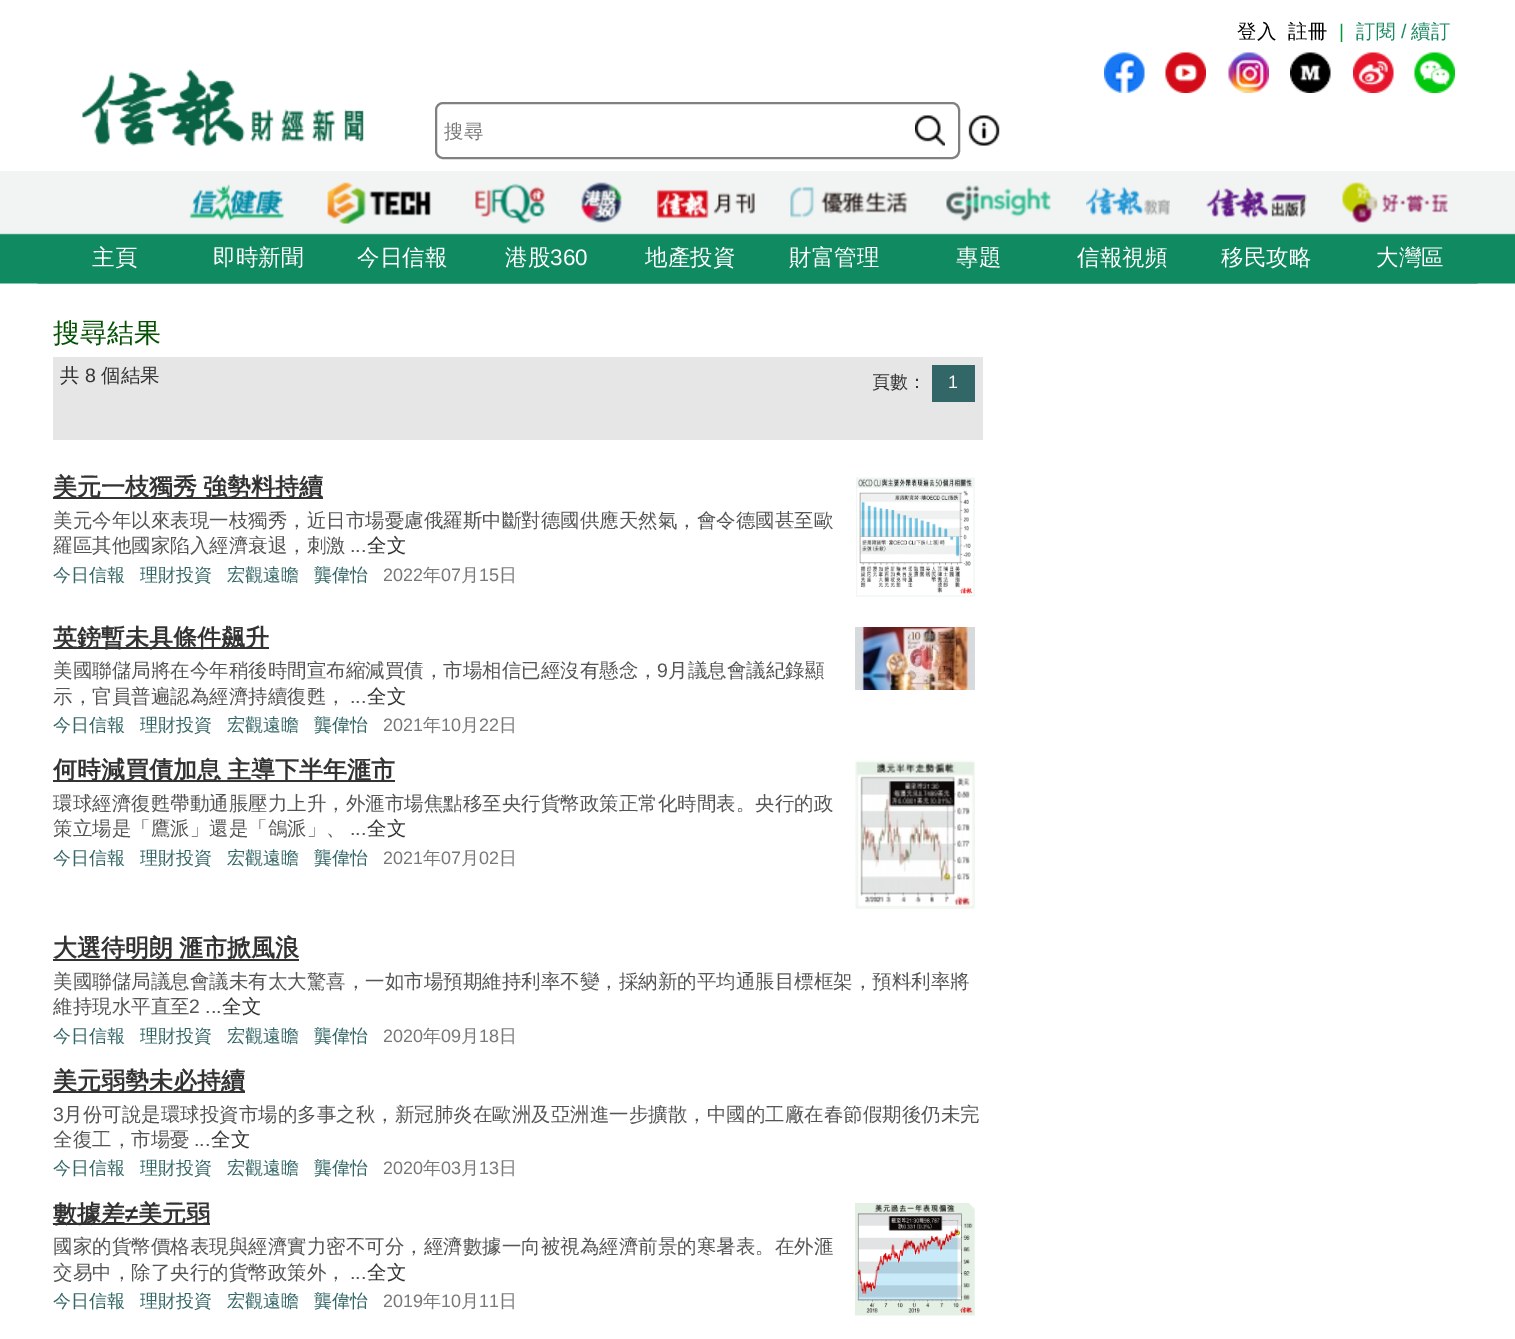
%!PS
<< /PageSize [1515 1339] >> setpagedevice
/rgb { 3 { 255 div 3 1 roll } repeat setrgbcolor } def
/font { [ exch dup neg 0 0 3 -1 roll 0 0 ] selectfont } def
/text { moveto show } def
/roundrect { 5 dict begin { /r /h /w /y /x } { exch def } forall
  x r add y moveto x w add y 2 copy h add r arct x w add y h add x 1 index r arct
  x y h add x y r arct x y 2 copy exch w add exch r arct closepath end } def
/picture { 5 dict begin { /h /w /y /x /name } { exch def } forall
  gsave x y translate w h scale
  w h 8 [w 0 0 h 0 0] name (r) file false 3 colorimage grestore end } def
0 1339 translate 1 -1 scale
4 setmiterlimit
255 255 255 rgb
0 0 1515 1339 rectfill
(img_01.rgb) 82 69 282 77 picture
128 128 128 rgb
2 setlinewidth
436 103 523 55 7 roundrect stroke
(img_02.rgb) 915 115 30 31 picture
(img_03.rgb) 968 115 32 31 picture
(img_04.rgb) 1104 52 41 41 picture
(img_05.rgb) 1165 52 41 41 picture
(img_06.rgb) 1228 52 41 41 picture
(img_07.rgb) 1290 52 41 41 picture
(img_08.rgb) 1353 52 41 41 picture
(img_09.rgb) 1414 52 41 41 picture
241 244 243 rgb
0 171 1515 57 rectfill
(img_10.rgb) 189 184 95 38 picture
(img_11.rgb) 327 182 104 42 picture
(img_12.rgb) 475 183 70 41 picture
(img_13.rgb) 581 182 41 41 picture
(img_14.rgb) 657 189 98 30 picture
(img_15.rgb) 790 186 118 32 picture
(img_16.rgb) 946 185 105 37 picture
(img_17.rgb) 1086 186 84 30 picture
(img_18.rgb) 1206 187 101 32 picture
(img_19.rgb) 1342 182 106 41 picture
(img_20.rgb) 0 228 1515 56 picture
(img_21.rgb) 37 283 1441 1 picture
230 230 230 rgb
53 357 930 83 rectfill
51 102 102 rgb
932 365 43 37 rectfill
51 51 51 rgb
53 497 270 2 rectfill
(img_22.rgb) 856 477 119 120 picture
53 647 216 2 rectfill
(img_23.rgb) 855 627 120 63 picture
53 780 342 2 rectfill
(img_24.rgb) 855 760 120 149 picture
53 959 246 2 rectfill
53 1091 192 2 rectfill
53 1223 157 2 rectfill
(img_25.rgb) 855 1203 120 113 picture
/WenQuanYiZenHei-Medium 19.5 font
0 0 0 rgb
(登入) 1237 38 text
(註冊) 1288 38 text
/LiberationSans-Regular 19.5 font
0 153 51 rgb
(|) 1339 38 text
/WenQuanYiZenHei-Medium 19.5 font
28 137 97 rgb
(訂閱) 1356 38 text
/LiberationSans-Regular 19.5 font
(/) 1401 38 text
/WenQuanYiZenHei-Medium 19.5 font
(續訂) 1411 38 text
119 119 119 rgb
(搜尋) 444 138 text
/WenQuanYiZenHei-Medium 22.5 font
255 255 255 rgb
(主頁) 92 265 text
(即時新聞) 213 265 text
(今日信報) 357 265 text
(港股) 505 265 text
/LiberationSans-Regular 22.5 font
(360) 550 265 text
/WenQuanYiZenHei-Medium 22.5 font
(地產投資) 645 265 text
(財富管理) 789 265 text
(專題) 956 265 text
(信報視頻) 1077 265 text
(移民攻略) 1221 265 text
(大灣區) 1376 265 text
/WenQuanYiZenHei-Medium 27 font
4 81 4 rgb
(搜尋結果) 53 342 text
/WenQuanYiZenHei-Medium 19.5 font
51 51 51 rgb
(共) 60 382 text
/LiberationSans-Regular 19.5 font
(8) 85 382 text
/WenQuanYiZenHei-Medium 19.5 font
(個結果) 101 382 text
/WenQuanYiZenHei-Medium 18 font
(頁數：) 872 388 text
/LiberationSans-Regular 18 font
255 255 255 rgb
(1) 948 388 text
/WenQuanYiZenHei-Bold 24 font
51 51 51 rgb
53 495 moveto -1 0 32 (美元一枝獨秀 強勢料持續) widthshow
/WenQuanYiZenHei-Medium 19.5 font
85 85 85 rgb
(美元今年以來表現一枝獨秀，近日市場憂慮俄羅斯中斷對德國供應天然氣，會令德國甚至歐) 53 527 text
(羅區其他國家陷入經濟衰退，刺激) 53 552 text
/LiberationSans-Regular 19.5 font
(...) 350 552 text
/WenQuanYiZenHei-Medium 19.5 font
51 51 51 rgb
(全文) 367 552 text
/WenQuanYiZenHei-Medium 18 font
51 102 102 rgb
(今日信報) 53 581 text
(理財投資) 140 581 text
(宏觀遠瞻) 227 581 text
(龔偉怡) 314 581 text
/LiberationSans-Regular 18 font
119 119 119 rgb
(2022) 383 581 text
/WenQuanYiZenHei-Medium 18 font
(年) 423 581 text
/LiberationSans-Regular 18 font
(07) 441 581 text
/WenQuanYiZenHei-Medium 18 font
(月) 461 581 text
/LiberationSans-Regular 18 font
(15) 479 581 text
/WenQuanYiZenHei-Medium 18 font
(日) 499 581 text
/WenQuanYiZenHei-Bold 24 font
51 51 51 rgb
(英鎊暫未具條件飆升) 53 646 text
/WenQuanYiZenHei-Medium 19.5 font
85 85 85 rgb
(美國聯儲局將在今年稍後時間宣布縮減買債，市場相信已經沒有懸念，) 53 677 text
/LiberationSans-Regular 19.5 font
(9) 657 677 text
/WenQuanYiZenHei-Medium 19.5 font
(月議息會議紀錄顯) 668 677 text
(示，官員普遍認為經濟持續復甦，) 53 703 text
/LiberationSans-Regular 19.5 font
(...) 350 703 text
/WenQuanYiZenHei-Medium 19.5 font
51 51 51 rgb
(全文) 367 703 text
/WenQuanYiZenHei-Medium 18 font
51 102 102 rgb
(今日信報) 53 731 text
(理財投資) 140 731 text
(宏觀遠瞻) 227 731 text
(龔偉怡) 314 731 text
/LiberationSans-Regular 18 font
119 119 119 rgb
(2021) 383 731 text
/WenQuanYiZenHei-Medium 18 font
(年) 423 731 text
/LiberationSans-Regular 18 font
(10) 441 731 text
/WenQuanYiZenHei-Medium 18 font
(月) 461 731 text
/LiberationSans-Regular 18 font
(22) 479 731 text
/WenQuanYiZenHei-Medium 18 font
(日) 499 731 text
/WenQuanYiZenHei-Bold 24 font
51 51 51 rgb
53 778 moveto -1 0 32 (何時減買債加息 主導下半年滙市) widthshow
/WenQuanYiZenHei-Medium 19.5 font
85 85 85 rgb
(環球經濟復甦帶動通脹壓力上升，外滙市場焦點移至央行貨幣政策正常化時間表。央行的政) 53 810 text
(策立場是「鷹派」還是「鴿派」、) 53 835 text
/LiberationSans-Regular 19.5 font
(...) 350 835 text
/WenQuanYiZenHei-Medium 19.5 font
51 51 51 rgb
(全文) 367 835 text
/WenQuanYiZenHei-Medium 18 font
51 102 102 rgb
(今日信報) 53 864 text
(理財投資) 140 864 text
(宏觀遠瞻) 227 864 text
(龔偉怡) 314 864 text
/LiberationSans-Regular 18 font
119 119 119 rgb
(2021) 383 864 text
/WenQuanYiZenHei-Medium 18 font
(年) 423 864 text
/LiberationSans-Regular 18 font
(07) 441 864 text
/WenQuanYiZenHei-Medium 18 font
(月) 461 864 text
/LiberationSans-Regular 18 font
(02) 479 864 text
/WenQuanYiZenHei-Medium 18 font
(日) 499 864 text
/WenQuanYiZenHei-Bold 24 font
51 51 51 rgb
53 956 moveto -1 0 32 (大選待明朗 滙市掀風浪) widthshow
/WenQuanYiZenHei-Medium 19.5 font
85 85 85 rgb
(美國聯儲局議息會議未有太大驚喜，一如市場預期維持利率不變，採納新的平均通脹目標框架，預料利率將) 53 988 text
(維持現水平直至) 53 1013 text
/LiberationSans-Regular 19.5 font
(2 ...) 189 1013 text
/WenQuanYiZenHei-Medium 19.5 font
51 51 51 rgb
(全文) 222 1013 text
/WenQuanYiZenHei-Medium 18 font
51 102 102 rgb
(今日信報) 53 1042 text
(理財投資) 140 1042 text
(宏觀遠瞻) 227 1042 text
(龔偉怡) 314 1042 text
/LiberationSans-Regular 18 font
119 119 119 rgb
(2020) 383 1042 text
/WenQuanYiZenHei-Medium 18 font
(年) 423 1042 text
/LiberationSans-Regular 18 font
(09) 441 1042 text
/WenQuanYiZenHei-Medium 18 font
(月) 461 1042 text
/LiberationSans-Regular 18 font
(18) 479 1042 text
/WenQuanYiZenHei-Medium 18 font
(日) 499 1042 text
/WenQuanYiZenHei-Bold 24 font
51 51 51 rgb
(美元弱勢未必持續) 53 1089 text
/LiberationSans-Regular 19.5 font
85 85 85 rgb
(3) 53 1121 text
/WenQuanYiZenHei-Medium 19.5 font
(月份可說是環球投資市場的多事之秋，新冠肺炎在歐洲及亞洲進一步擴散，中國的工廠在春節假期後仍未完) 63 1121 text
(全復工，市場憂) 53 1146 text
/LiberationSans-Regular 19.5 font
(...) 194 1146 text
/WenQuanYiZenHei-Medium 19.5 font
51 51 51 rgb
(全文) 211 1146 text
/WenQuanYiZenHei-Medium 18 font
51 102 102 rgb
(今日信報) 53 1174 text
(理財投資) 140 1174 text
(宏觀遠瞻) 227 1174 text
(龔偉怡) 314 1174 text
/LiberationSans-Regular 18 font
119 119 119 rgb
(2020) 383 1174 text
/WenQuanYiZenHei-Medium 18 font
(年) 423 1174 text
/LiberationSans-Regular 18 font
(03) 441 1174 text
/WenQuanYiZenHei-Medium 18 font
(月) 461 1174 text
/LiberationSans-Regular 18 font
(13) 479 1174 text
/WenQuanYiZenHei-Medium 18 font
(日) 499 1174 text
/WenQuanYiZenHei-Bold 24 font
51 51 51 rgb
(數據差) 53 1222 text
/LiberationSans-Bold 24 font
(≠) 125 1222 text
/WenQuanYiZenHei-Bold 24 font
(美元弱) 138 1222 text
/WenQuanYiZenHei-Medium 19.5 font
85 85 85 rgb
(國家的貨幣價格表現與經濟實力密不可分，經濟數據一向被視為經濟前景的寒暑表。在外滙) 53 1253 text
(交易中，除了央行的貨幣政策外，) 53 1279 text
/LiberationSans-Regular 19.5 font
(...) 350 1279 text
/WenQuanYiZenHei-Medium 19.5 font
51 51 51 rgb
(全文) 367 1279 text
/WenQuanYiZenHei-Medium 18 font
51 102 102 rgb
(今日信報) 53 1307 text
(理財投資) 140 1307 text
(宏觀遠瞻) 227 1307 text
(龔偉怡) 314 1307 text
/LiberationSans-Regular 18 font
119 119 119 rgb
(2019) 383 1307 text
/WenQuanYiZenHei-Medium 18 font
(年) 423 1307 text
/LiberationSans-Regular 18 font
(10) 441 1307 text
/WenQuanYiZenHei-Medium 18 font
(月) 461 1307 text
/LiberationSans-Regular 18 font
(11) 479 1307 text
/WenQuanYiZenHei-Medium 18 font
(日) 499 1307 text
showpage
